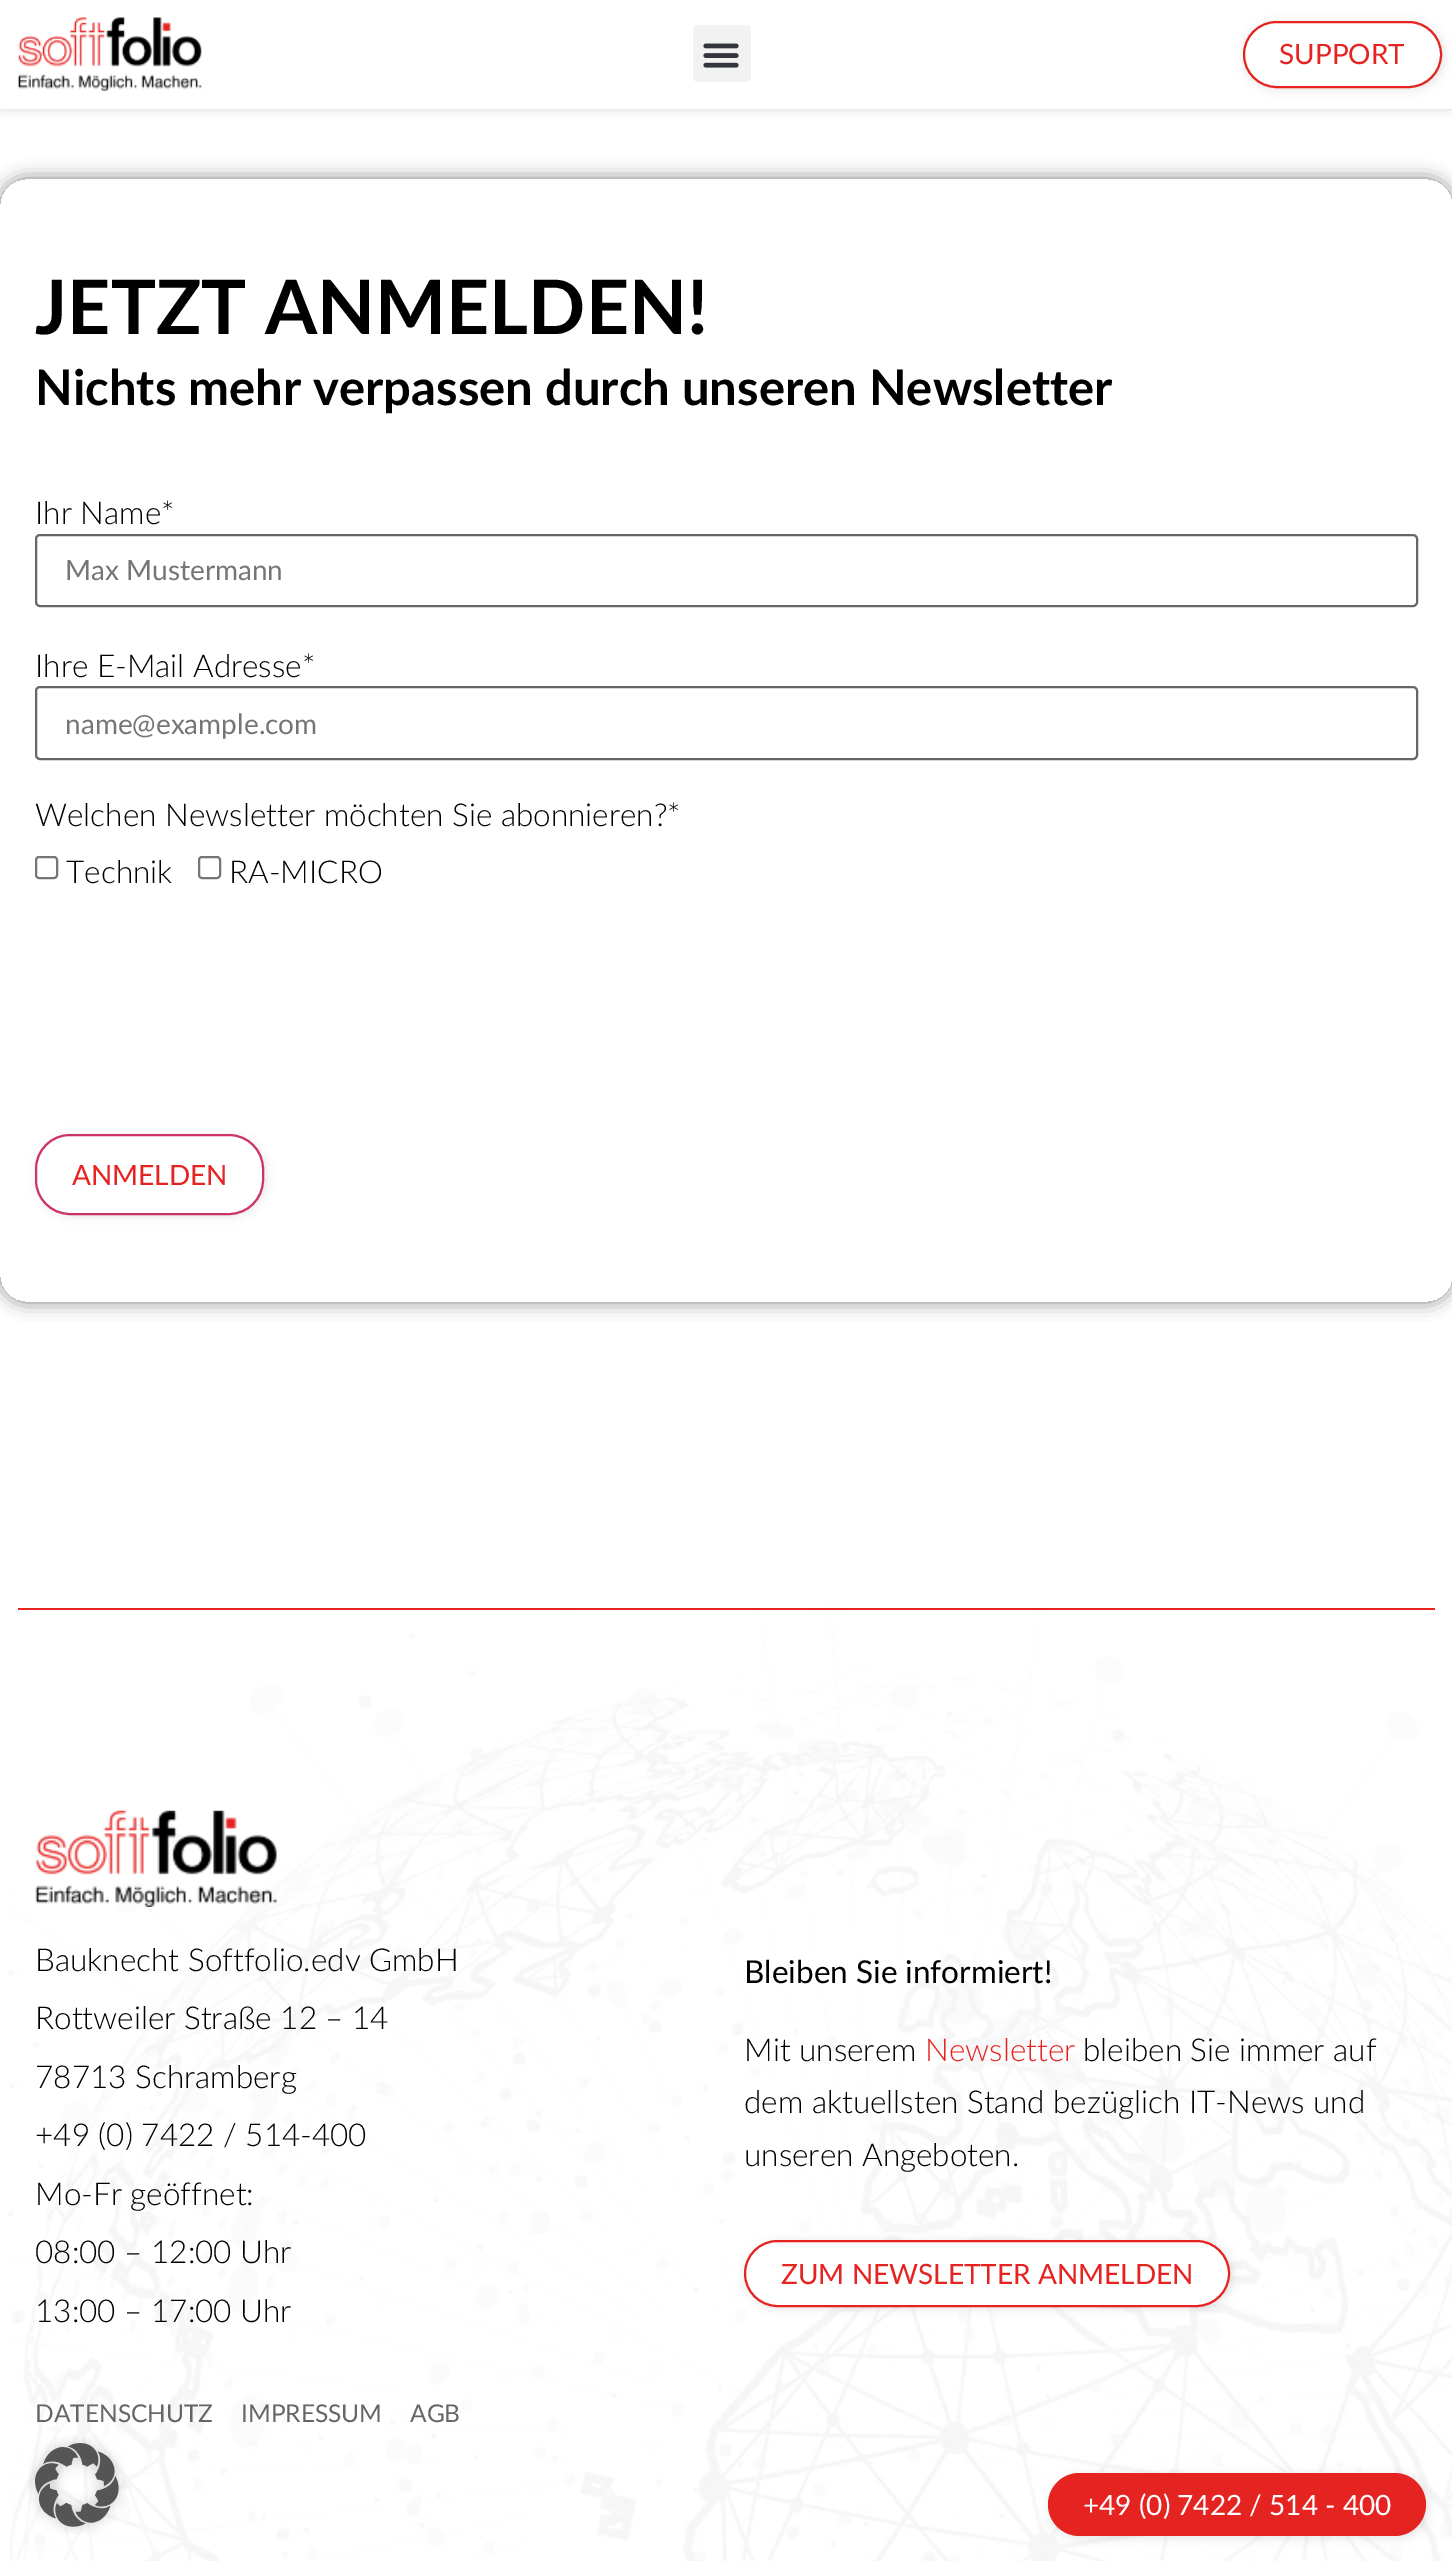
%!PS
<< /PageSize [1452 2561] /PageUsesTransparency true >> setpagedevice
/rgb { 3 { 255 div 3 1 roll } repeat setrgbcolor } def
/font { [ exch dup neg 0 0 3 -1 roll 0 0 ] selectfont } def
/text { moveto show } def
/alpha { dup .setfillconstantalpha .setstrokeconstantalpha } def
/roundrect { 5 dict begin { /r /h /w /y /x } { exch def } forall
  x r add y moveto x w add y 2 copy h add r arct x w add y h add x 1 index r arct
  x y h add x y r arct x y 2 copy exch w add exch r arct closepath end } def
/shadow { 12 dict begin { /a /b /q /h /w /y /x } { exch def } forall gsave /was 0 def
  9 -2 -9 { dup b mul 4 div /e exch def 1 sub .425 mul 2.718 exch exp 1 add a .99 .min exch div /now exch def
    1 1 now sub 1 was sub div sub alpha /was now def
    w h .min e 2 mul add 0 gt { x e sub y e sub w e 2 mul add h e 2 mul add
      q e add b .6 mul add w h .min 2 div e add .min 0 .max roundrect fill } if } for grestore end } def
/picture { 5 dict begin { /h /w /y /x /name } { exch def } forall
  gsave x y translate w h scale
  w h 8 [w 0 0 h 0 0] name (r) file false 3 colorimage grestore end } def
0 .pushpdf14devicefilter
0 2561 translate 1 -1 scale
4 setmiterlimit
255 255 255 rgb
0 0 1452 2561 rectfill
0 0 0 rgb
0 0 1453 109 0 5 0.16 shadow
255 255 255 rgb
0 0 1452 109 rectfill
(img_01.rgb) 17 17 185 74 picture
242 242 242 rgb
693 25 58 57 5 roundrect fill
(img_02.rgb) 703 43 36 25 picture
0 0 0 rgb
1244 23 200 66 33 5 0.11 shadow
255 255 255 rgb
1244 22 197 65 32.5 roundrect gsave fill grestore
229 35 33 rgb
2 setlinewidth
stroke
gsave
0 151 moveto 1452 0 rlineto 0 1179 rlineto -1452 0 rlineto closepath 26 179 moveto 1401 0 rlineto 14.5 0 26 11.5 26 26 rcurveto 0 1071 rlineto 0 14.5 -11.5 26 -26 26 rcurveto -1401 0 rlineto -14.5 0 -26 -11.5 -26 -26 rcurveto 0 -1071 rlineto 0 -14.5 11.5 -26 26 -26 rcurveto closepath eoclip newpath
0 0 0 rgb
0 179 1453 1123 26 9 0.5 shadow
grestore
102 102 102 rgb
36 535 1381 71 4 roundrect stroke
36 687 1381 72 4 roundrect stroke
118 118 118 rgb
36 857 21 21 3 roundrect stroke
199 857 21 21 3 roundrect stroke
0 0 0 rgb
37 1136 229 80 35 5 0.11 shadow
255 255 255 rgb
36 1135 227 79 34 roundrect gsave fill grestore
204 51 102 rgb
stroke
(img_03.rgb) 8 1607 1444 954 picture
229 35 33 rgb
18 1608 1417 2 rectfill
(img_04.rgb) 35 1810 242 97 picture
0 0 0 rgb
746 2242 486 66 33 5 0.11 shadow
255 255 255 rgb
745 2241 484 65 32.5 roundrect gsave fill grestore
229 35 33 rgb
stroke
0 0 0 rgb
1050 2475 378 63 31.5 5 0.11 shadow
229 35 33 rgb
1048 2473 378 63 31.5 roundrect fill
(img_05.rgb) 28 2436 98 98 picture
/Lato-Regular 28 font
(SUPPORT) 1279 64 text
/Lato-Bold 75.25 font
0 0 0 rgb
(JETZT ANMELDEN!) 35 334 text
/Lato-Bold 49 font
(Nichts mehr verpassen durch unseren Newsletter) 35 405 text
/Lato-Light 31.5 font
(Ihr Name*) 35 524 text
/Lato-Regular 28 font
117 117 117 rgb
(Max Mustermann) 65 580 text
/Lato-Light 31.5 font
0 0 0 rgb
(Ihre E-Mail Adresse*) 35 677 text
/Lato-Regular 28 font
117 117 117 rgb
(name@example.com) 65 734 text
/Lato-Light 31.5 font
0 0 0 rgb
(Welchen Newsletter möchten Sie abonnieren?*) 35 826 text
(Technik) 66 883 text
(RA-MICRO) 229 883 text
/Lato-Regular 28 font
229 35 33 rgb
(ANMELDEN) 72 1185 text
/Lato-Light 31.5 font
0 0 0 rgb
(Bauknecht Softfolio.edv GmbH) 35 1971 text
(Rottweiler Straße 12 – 14) 35 2029 text
(78713 Schramberg) 35 2088 text
(+49 \(0\) 7422 / 514-400) 35 2146 text
(Mo-Fr geöffnet:) 35 2205 text
(08:00 – 12:00 Uhr) 35 2263 text
(13:00 – 17:00 Uhr) 35 2322 text
/Lato-Regular 24.5 font
102 102 102 rgb
(DATENSCHUTZ) 35 2422 text
(IMPRESSUM) 241 2422 text
(AGB) 410 2422 text
/Lato-Regular 31.5 font
0 0 0 rgb
(Bleiben Sie informiert!) 744 1983 text
/Lato-Light 31.5 font
(Mit unserem) 744 2061 text
229 35 33 rgb
(Newsletter) 925 2061 text
0 0 0 rgb
(bleiben Sie immer auf) 1083 2061 text
(dem aktuellsten Stand bezüglich IT-News und) 744 2113 text
(unseren Angeboten.) 744 2166 text
/Lato-Regular 28 font
229 35 33 rgb
(ZUM NEWSLETTER ANMELDEN) 781 2284 text
255 255 255 rgb
(+49 \(0\) 7422 / 514 - 400) 1083 2515 text
.poppdf14devicefilter showpage
